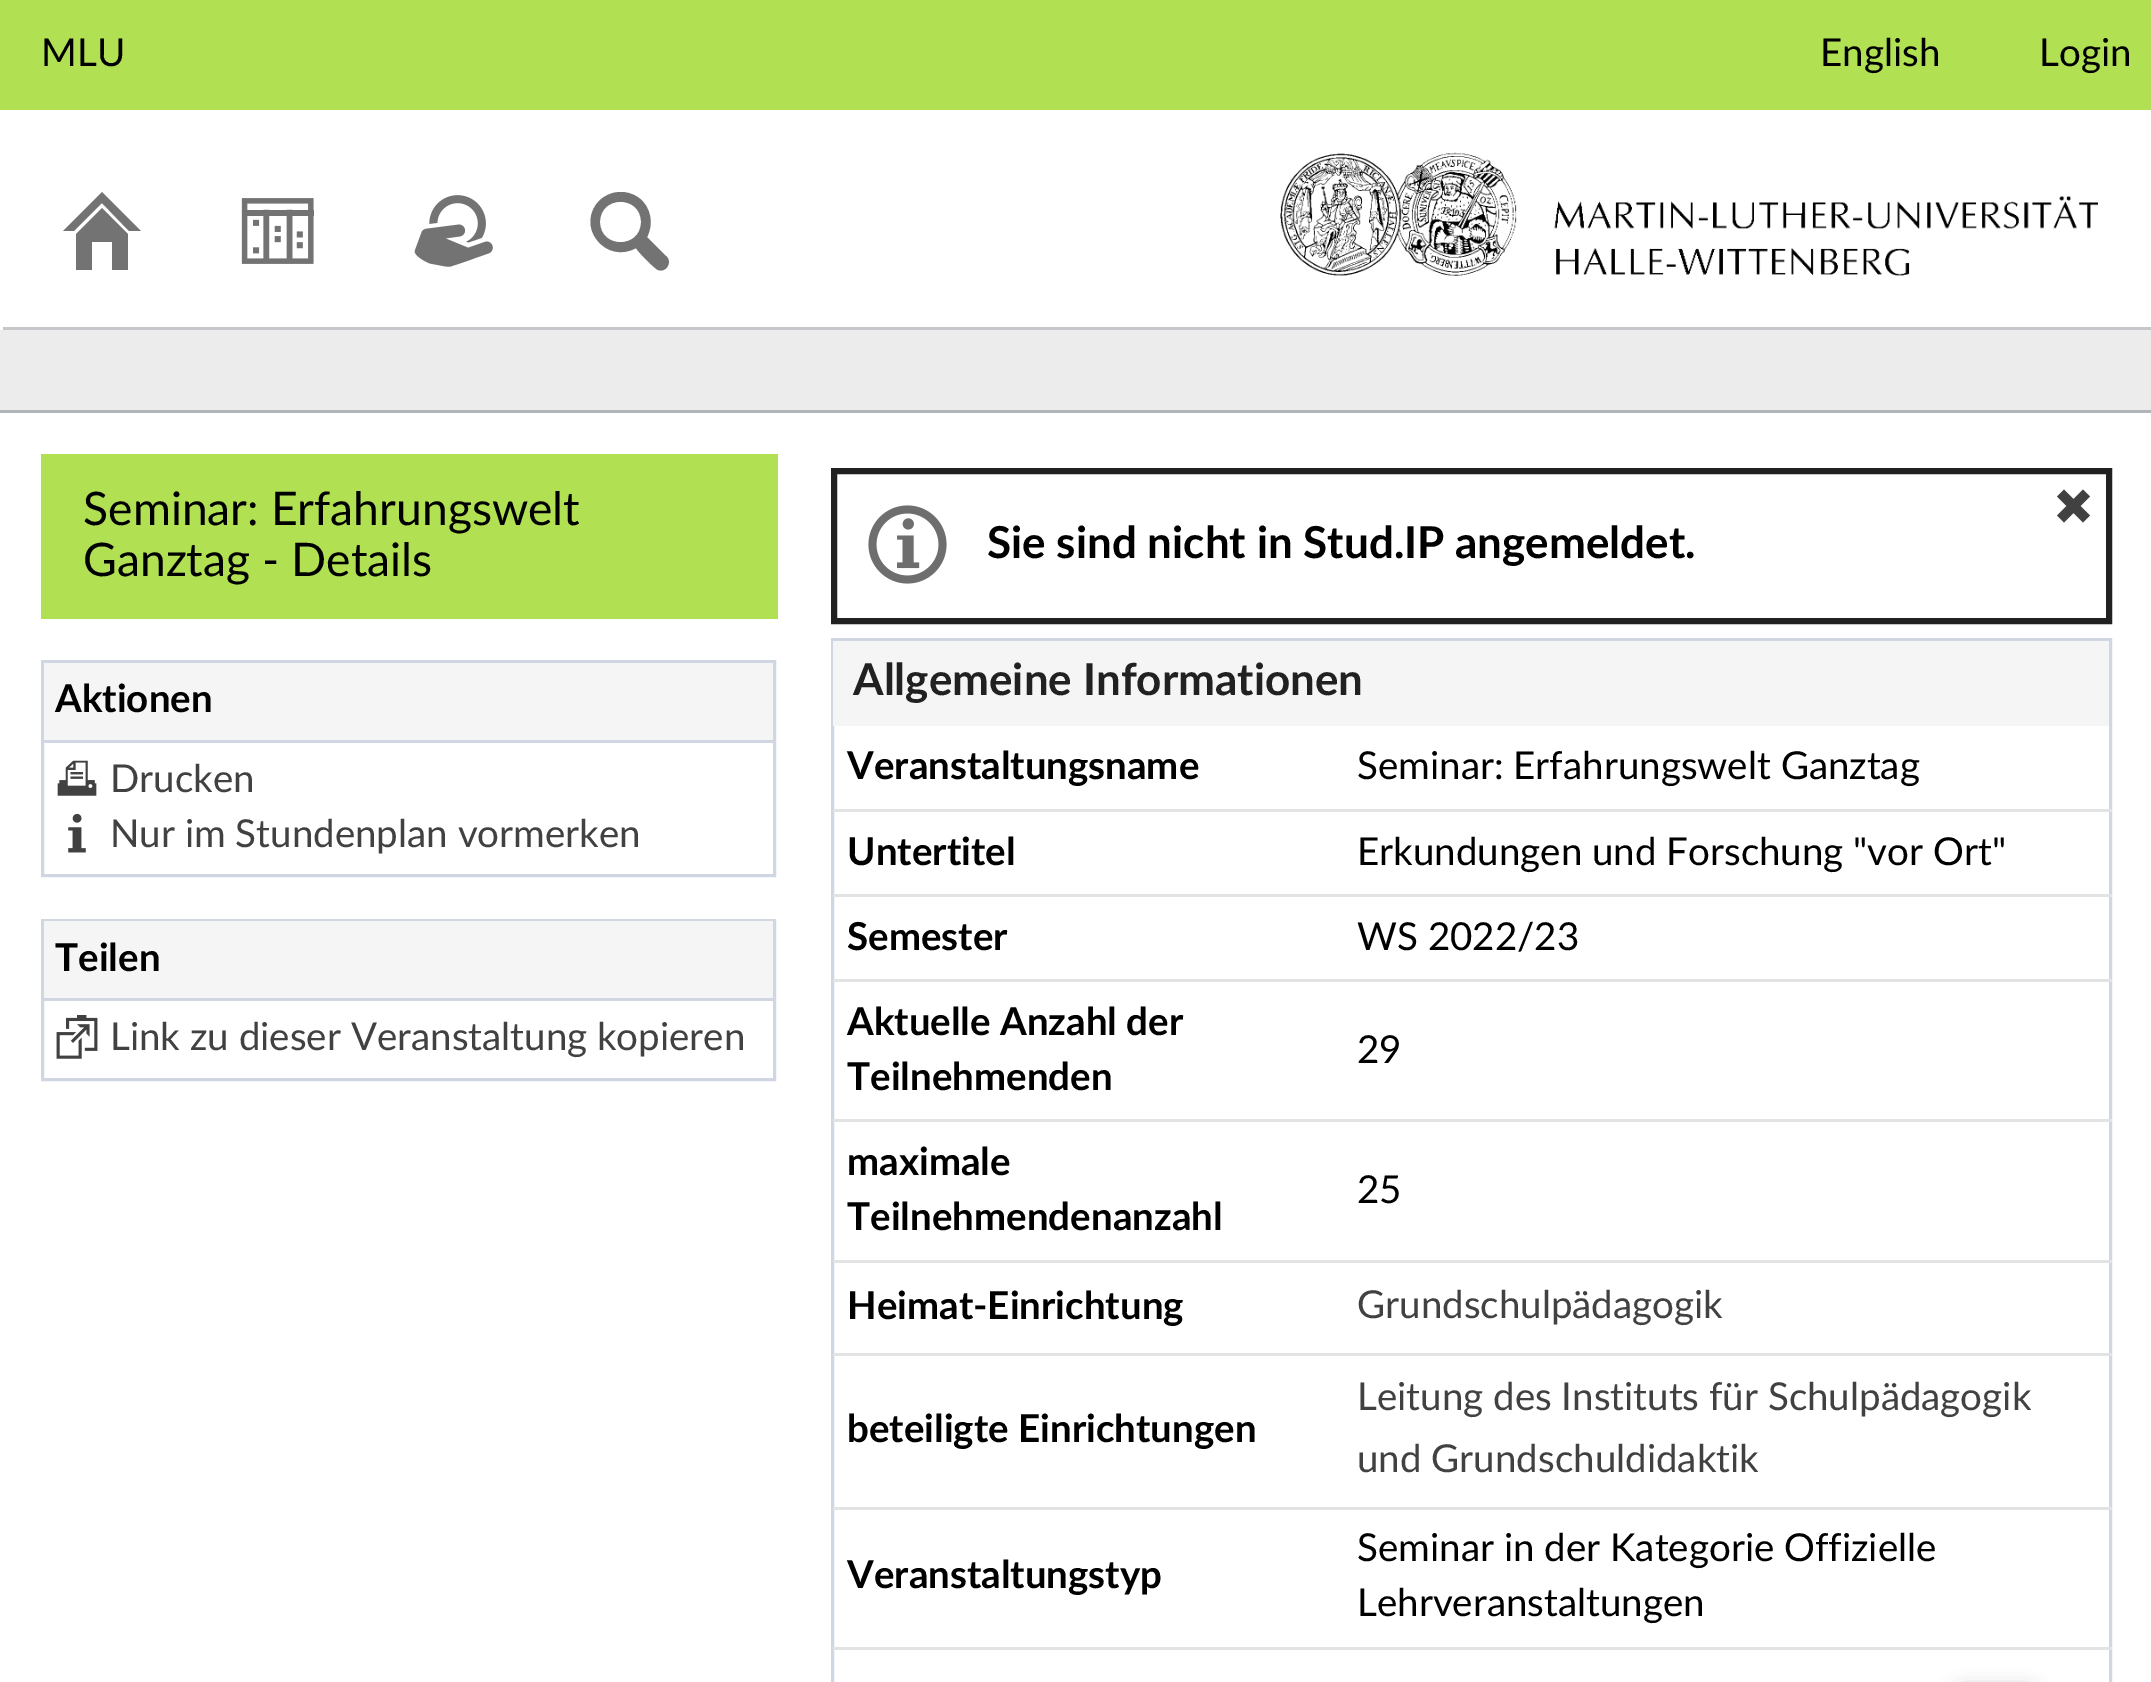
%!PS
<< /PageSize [2151 1682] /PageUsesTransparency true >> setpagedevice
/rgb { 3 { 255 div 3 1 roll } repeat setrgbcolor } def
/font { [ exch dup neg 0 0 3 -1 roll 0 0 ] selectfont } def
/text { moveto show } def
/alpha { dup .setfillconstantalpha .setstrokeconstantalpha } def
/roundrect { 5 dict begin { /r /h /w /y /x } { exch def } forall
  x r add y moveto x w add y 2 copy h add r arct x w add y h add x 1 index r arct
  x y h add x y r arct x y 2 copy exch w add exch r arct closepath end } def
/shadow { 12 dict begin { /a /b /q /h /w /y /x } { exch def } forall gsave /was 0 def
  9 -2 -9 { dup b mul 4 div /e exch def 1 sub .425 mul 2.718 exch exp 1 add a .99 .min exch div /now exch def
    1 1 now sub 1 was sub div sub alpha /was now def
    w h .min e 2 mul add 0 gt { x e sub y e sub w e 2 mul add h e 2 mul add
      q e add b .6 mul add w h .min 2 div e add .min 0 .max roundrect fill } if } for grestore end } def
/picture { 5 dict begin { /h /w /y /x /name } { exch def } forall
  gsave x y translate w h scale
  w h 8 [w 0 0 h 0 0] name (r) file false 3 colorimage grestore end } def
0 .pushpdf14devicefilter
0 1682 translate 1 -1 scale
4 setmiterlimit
255 255 255 rgb
0 0 2151 1682 rectfill
177 224 83 rgb
0 0 2151 110 rectfill
197 199 202 rgb
3 327 2148 3 rectfill
115 115 115 rgb
102 192 moveto -39 39 rlineto 11 0 rlineto 28 -28 rlineto 27 28 rlineto 12 0 rlineto closepath fill
76 234 moveto 0 36 rlineto 16 0 rlineto 0 -28 rlineto 20 0 rlineto 0 28 rlineto 16 0 rlineto 0 -36 rlineto -26 -26 rlineto closepath fill
(img_01.rgb) 241 198 73 66 picture
(img_02.rgb) 414 195 79 72 picture
666 256 moveto -19 -19 rlineto 7 -13 4 -30 -8 -39 rcurveto -12 -9 -29 -8 -40 3 rcurveto -10 10 -12 27 -2 39 rcurveto 9 12 25 16 39 8 rcurveto 2 4 18 20 22 22 rcurveto 8 3 15 -8 8 -14 rcurveto closepath 600 222 moveto 0 -27 41 -27 41 0 rcurveto 0 27 -41 27 -41 0 rcurveto closepath fill
(img_03.rgb) 1280 152 818 124 picture
236 236 237 rgb
0 330 2151 80 rectfill
177 180 184 rgb
0 410 2151 3 rectfill
177 224 83 rgb
41 454 737 165 rectfill
208 215 227 rgb
3 setlinewidth
42.5 661.5 732 214 rectstroke
245 245 245 rgb
44 663 729 77 rectfill
208 215 227 rgb
44 740 729 3 rectfill
(img_04.rgb) 57 760 40 36 picture
(img_05.rgb) 68 813 18 40 picture
42.5 920.5 732 159 rectstroke
245 245 245 rgb
44 921 729 77 rectfill
208 215 227 rgb
44 998 729 3 rectfill
(img_06.rgb) 56 1015 42 44 picture
(img_07.rgb) 868 505 79 79 picture
33 33 33 rgb
6 setlinewidth
834 471 1275 150 rectstroke
65 65 65 rgb
2090 515.5 moveto -9.5 -9.5 rlineto 9.5 -9.5 rlineto -7 -7 rlineto -9.5 9.5 rlineto -9.5 -9.5 rlineto -7 7 rlineto 9.5 9.5 rlineto -9.5 9.5 rlineto 7 7 rlineto 9.5 -9.5 rlineto 9.5 9.5 rlineto closepath fill
208 215 227 rgb
3 setlinewidth
832.5 639.5 1278 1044 rectstroke
245 245 245 rgb
833 641 1276 85 rectfill
226 227 228 rgb
833 809 1279 3 rectfill
833 894 1279 3 rectfill
833 979 1279 3 rectfill
833 1119 1279 3 rectfill
833 1260 1279 3 rectfill
833 1353 1279 3 rectfill
833 1507 1279 3 rectfill
833 1647 1279 3 rectfill
0 0 0 rgb
1933 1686 124 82 62 8 0.2 shadow
/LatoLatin-Regular 38.5 font
(MLU) 41 66 text
(English) 1820 66 text
(Login) 2039 66 text
/LatoLatin-Regular 46.25 font
(Seminar: Erfahrungswelt) 83 525 text
(Ganztag - Details) 83 576 text
/LatoLatin-Bold 38.5 font
(Aktionen) 55 712 text
/LatoLatin-Regular 38.5 font
65 65 65 rgb
(Drucken) 110 792 text
(Nur im Stundenplan vormerken) 110 847 text
/LatoLatin-Bold 38.5 font
0 0 0 rgb
(Teilen) 55 971 text
/LatoLatin-Regular 38.5 font
65 65 65 rgb
(Link zu dieser Veranstaltung kopieren) 110 1050 text
/LatoLatin-Bold 44 font
0 0 0 rgb
(Sie sind nicht in Stud.IP angemeldet.) 987 558 text
33 33 33 rgb
(Allgemeine Informationen) 853 695 text
/LatoLatin-Bold 38.5 font
0 0 0 rgb
(Veranstaltungsname) 847 779 text
/LatoLatin-Regular 38.5 font
(Seminar: Erfahrungswelt Ganztag) 1357 779 text
/LatoLatin-Bold 38.5 font
(Untertitel) 847 865 text
/LatoLatin-Regular 38.5 font
(Erkundungen und Forschung "vor Ort") 1357 865 text
/LatoLatin-Bold 38.5 font
(Semester) 847 950 text
/LatoLatin-Regular 38.5 font
(WS 2022/23) 1357 950 text
/LatoLatin-Bold 38.5 font
(Aktuelle Anzahl der) 847 1035 text
(Teilnehmenden) 847 1090 text
/LatoLatin-Regular 38.5 font
(29) 1357 1063 text
/LatoLatin-Bold 38.5 font
(maximale) 847 1175 text
(Teilnehmendenanzahl) 847 1230 text
/LatoLatin-Regular 38.5 font
(25) 1357 1203 text
/LatoLatin-Bold 38.5 font
(Heimat-Einrichtung) 847 1319 text
/LatoLatin-Regular 38.5 font
65 65 65 rgb
(Grundschulpädagogik) 1357 1318 text
/LatoLatin-Bold 38.5 font
0 0 0 rgb
(beteiligte Einrichtungen) 847 1442 text
/LatoLatin-Regular 38.5 font
65 65 65 rgb
(Leitung des Instituts für Schulpädagogik) 1357 1410 text
(und Grundschuldidaktik) 1357 1472 text
/LatoLatin-Bold 38.5 font
0 0 0 rgb
(Veranstaltungstyp) 847 1588 text
/LatoLatin-Regular 38.5 font
(Seminar in der Kategorie Offizielle) 1357 1561 text
(Lehrveranstaltungen) 1357 1616 text
.poppdf14devicefilter showpage
